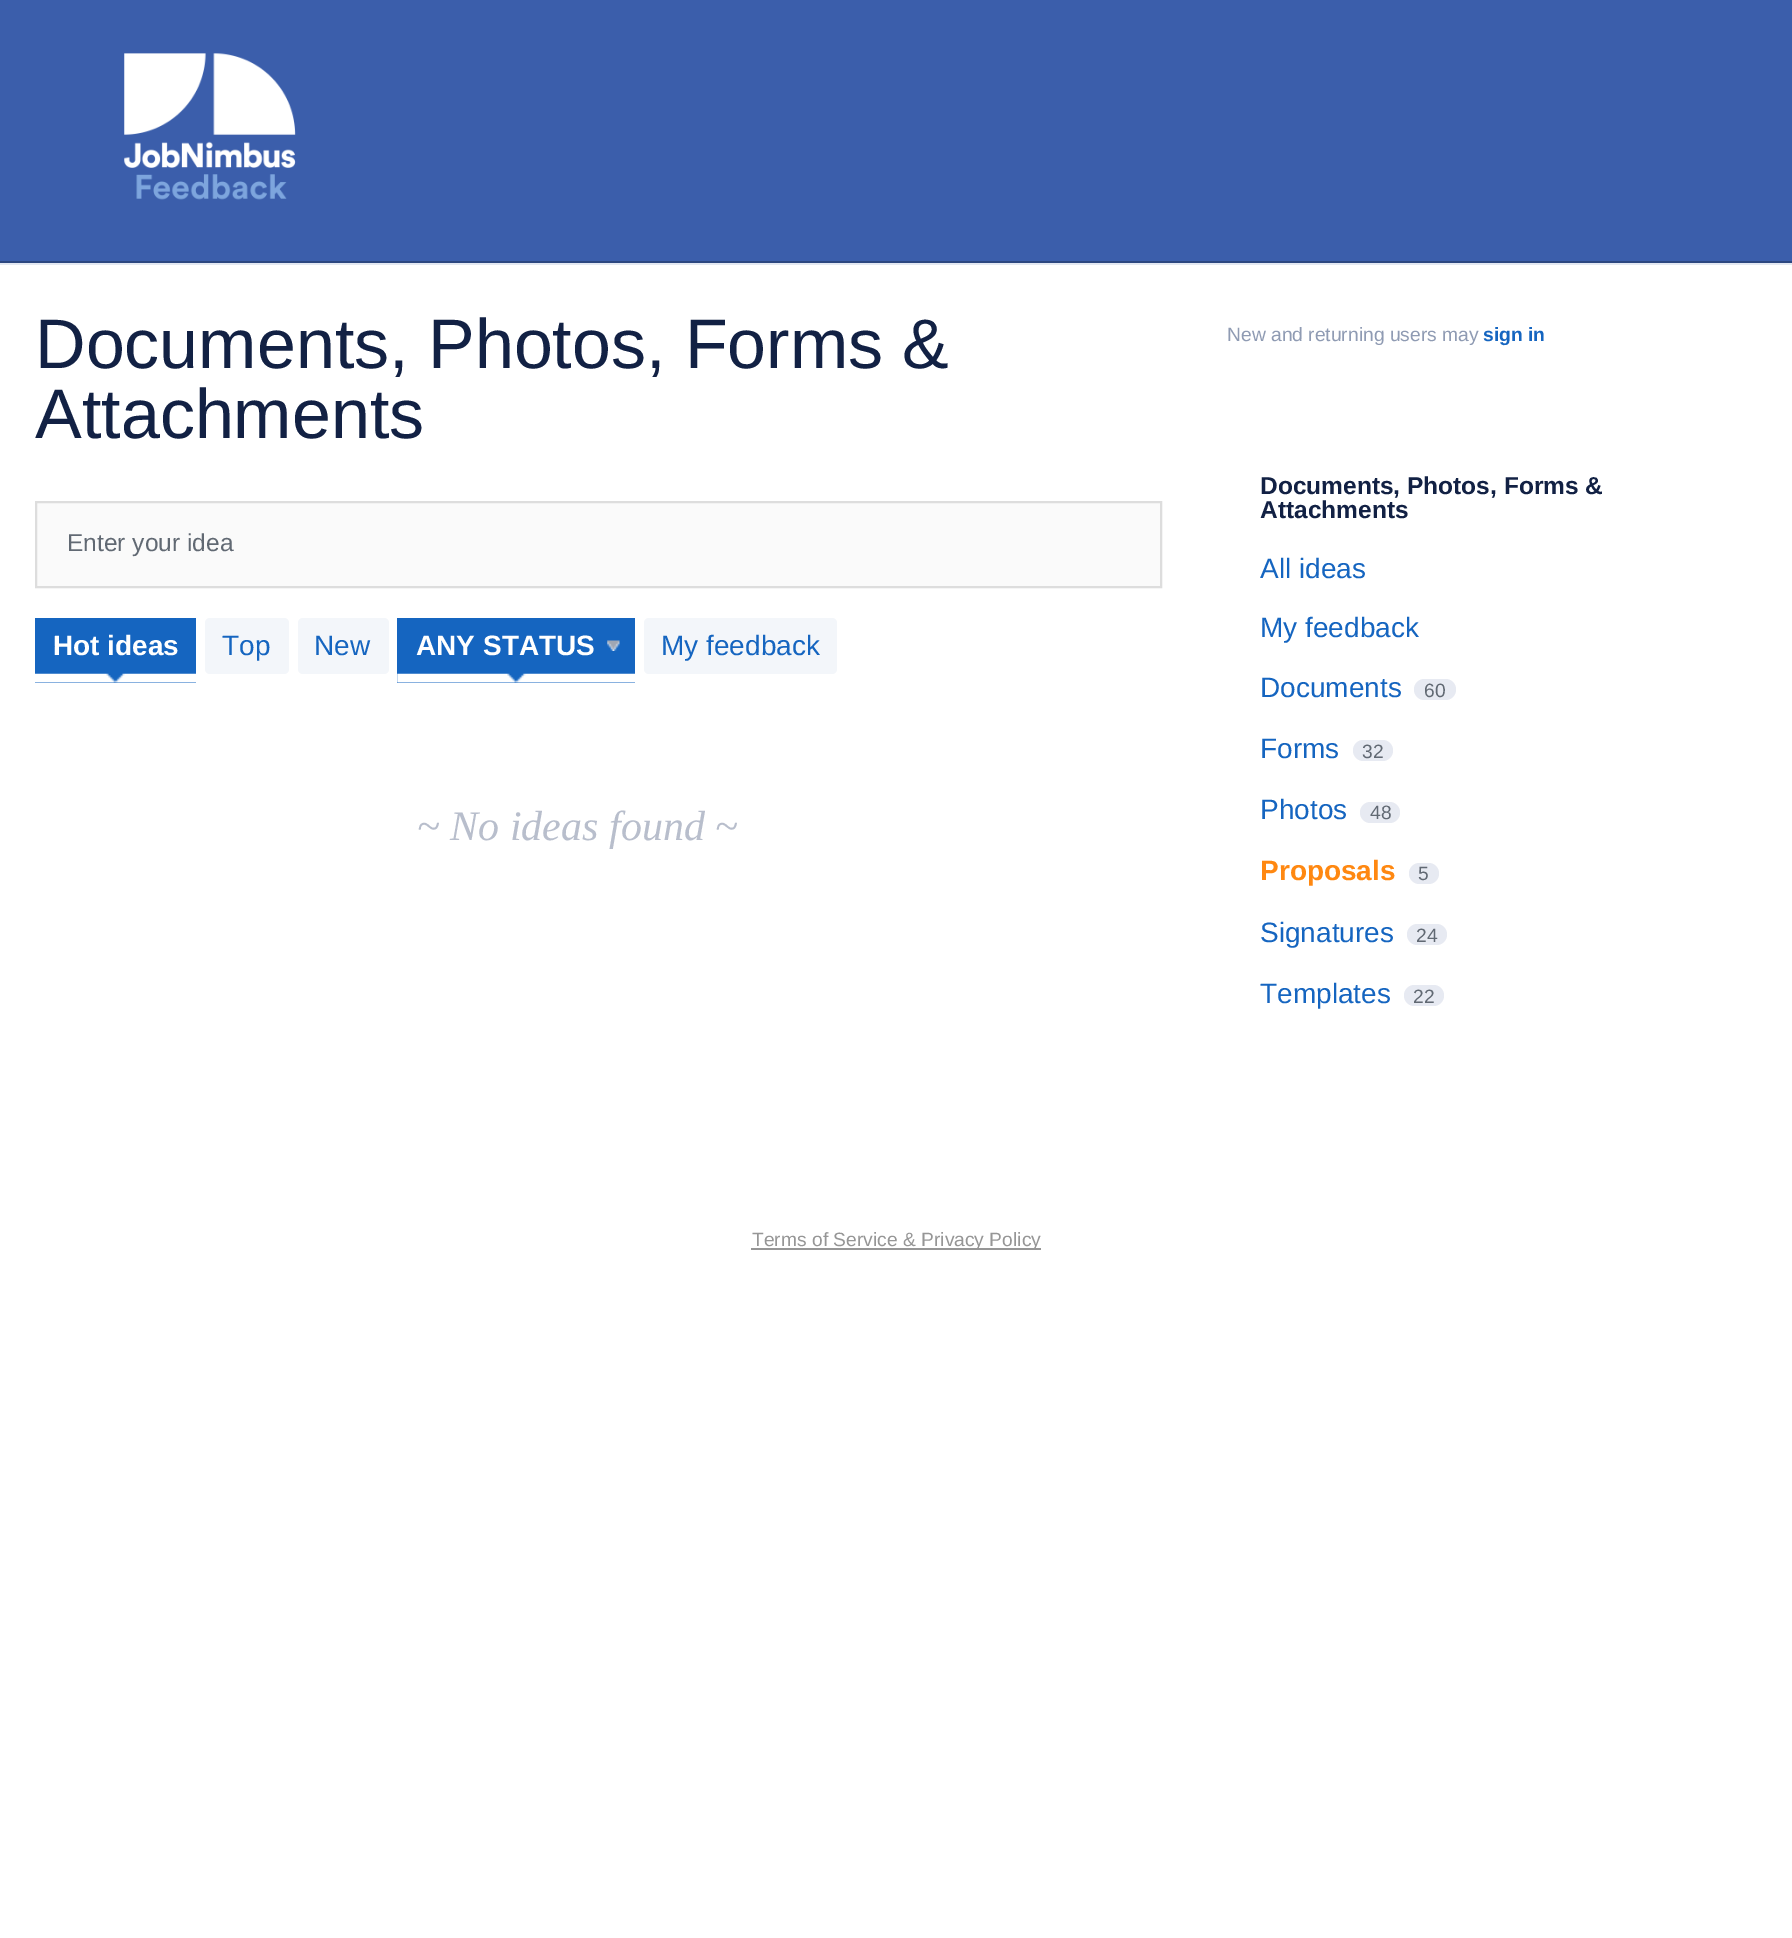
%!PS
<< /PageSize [1792 1938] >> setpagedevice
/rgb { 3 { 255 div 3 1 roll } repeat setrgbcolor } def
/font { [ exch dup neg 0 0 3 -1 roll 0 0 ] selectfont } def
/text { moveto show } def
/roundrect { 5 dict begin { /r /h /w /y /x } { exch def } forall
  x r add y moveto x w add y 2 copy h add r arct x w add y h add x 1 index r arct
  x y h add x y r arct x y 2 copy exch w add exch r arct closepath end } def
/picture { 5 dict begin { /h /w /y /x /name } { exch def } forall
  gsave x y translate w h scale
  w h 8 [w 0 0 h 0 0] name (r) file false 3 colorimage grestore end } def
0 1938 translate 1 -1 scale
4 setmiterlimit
255 255 255 rgb
0 0 1792 1938 rectfill
59 94 171 rgb
0 0 1792 261 rectfill
44 71 128 rgb
0 261 1792 2 rectfill
(img_01.rgb) 124 53 172 147 picture
227 232 242 rgb
0 263 1792 2 rectfill
250 250 250 rgb
36 502 moveto 1125 0 rlineto 0 85 rlineto -1125 0 rlineto closepath gsave fill grestore
221 221 221 rgb
2 setlinewidth
stroke
21 101 192 rgb
35 618 161 65 rectfill
(img_02.rgb) 35 673 161 10 picture
243 246 250 rgb
205 618 84 56 5 roundrect fill
298 618 91 56 5 roundrect fill
21 101 192 rgb
397 618 238 65 rectfill
(img_03.rgb) 397 673 238 10 picture
(img_04.rgb) 607 640 13 11 picture
243 246 250 rgb
644 618 193 56 5 roundrect fill
231 234 242 rgb
1414 679 42 21 10.5 roundrect fill
1353 740 40 21 10.5 roundrect fill
1360 802 40 21 10.5 roundrect fill
1409 863 30 21 10.5 roundrect fill
1407 924 40 21 10.5 roundrect fill
1404 985 40 21 10.5 roundrect fill
150 150 150 rgb
751 1248 290 2 rectfill
/LiberationSans-Regular 70 font
18 33 68 rgb
(Documents, Photos, Forms &) 35 368 text
(Attachments) 35 438 text
/LiberationSans-Regular 24.5 font
97 105 115 rgb
(Enter your idea) 67 551 text
/LiberationSans-Bold 28 font
255 255 255 rgb
(Hot ideas) 53 655 text
/LiberationSans-Regular 28 font
21 101 192 rgb
(Top) 222 655 text
(New) 314 655 text
/LiberationSans-Bold 28 font
255 255 255 rgb
(ANY STATUS) 416 655 text
/LiberationSans-Regular 28 font
21 101 192 rgb
(My feedback) 661 655 text
/LiberationSerif-Italic 42 font
184 190 204 rgb
(~ No ideas found ~) 417 840 text
/LiberationSans-Regular 19.25 font
143 155 179 rgb
(New and returning users may) 1227 341 text
/LiberationSans-Bold 19.25 font
21 101 192 rgb
(sign in) 1483 341 text
/LiberationSans-Bold 24.5 font
18 33 68 rgb
(Documents, Photos, Forms &) 1260 494 text
(Attachments) 1260 518 text
/LiberationSans-Regular 28 font
21 101 192 rgb
(All ideas) 1260 578 text
(My feedback) 1260 637 text
(Documents) 1260 697 text
/LiberationSans-Regular 19.25 font
97 105 115 rgb
(60) 1424 697 text
/LiberationSans-Regular 28 font
21 101 192 rgb
(Forms) 1260 758 text
/LiberationSans-Regular 19.25 font
97 105 115 rgb
(32) 1362 758 text
/LiberationSans-Regular 28 font
21 101 192 rgb
(Photos) 1260 819 text
/LiberationSans-Regular 19.25 font
97 105 115 rgb
(48) 1370 819 text
/LiberationSans-Bold 28 font
255 136 17 rgb
(Proposals) 1260 880 text
/LiberationSans-Regular 19.25 font
97 105 115 rgb
(5) 1418 880 text
/LiberationSans-Regular 28 font
21 101 192 rgb
(Signatures) 1260 942 text
/LiberationSans-Regular 19.25 font
97 105 115 rgb
(24) 1416 942 text
/LiberationSans-Regular 28 font
21 101 192 rgb
(Templates) 1260 1003 text
/LiberationSans-Regular 19.25 font
97 105 115 rgb
(22) 1413 1003 text
150 150 150 rgb
(Terms of Service & Privacy Policy) 752 1246 text
showpage
